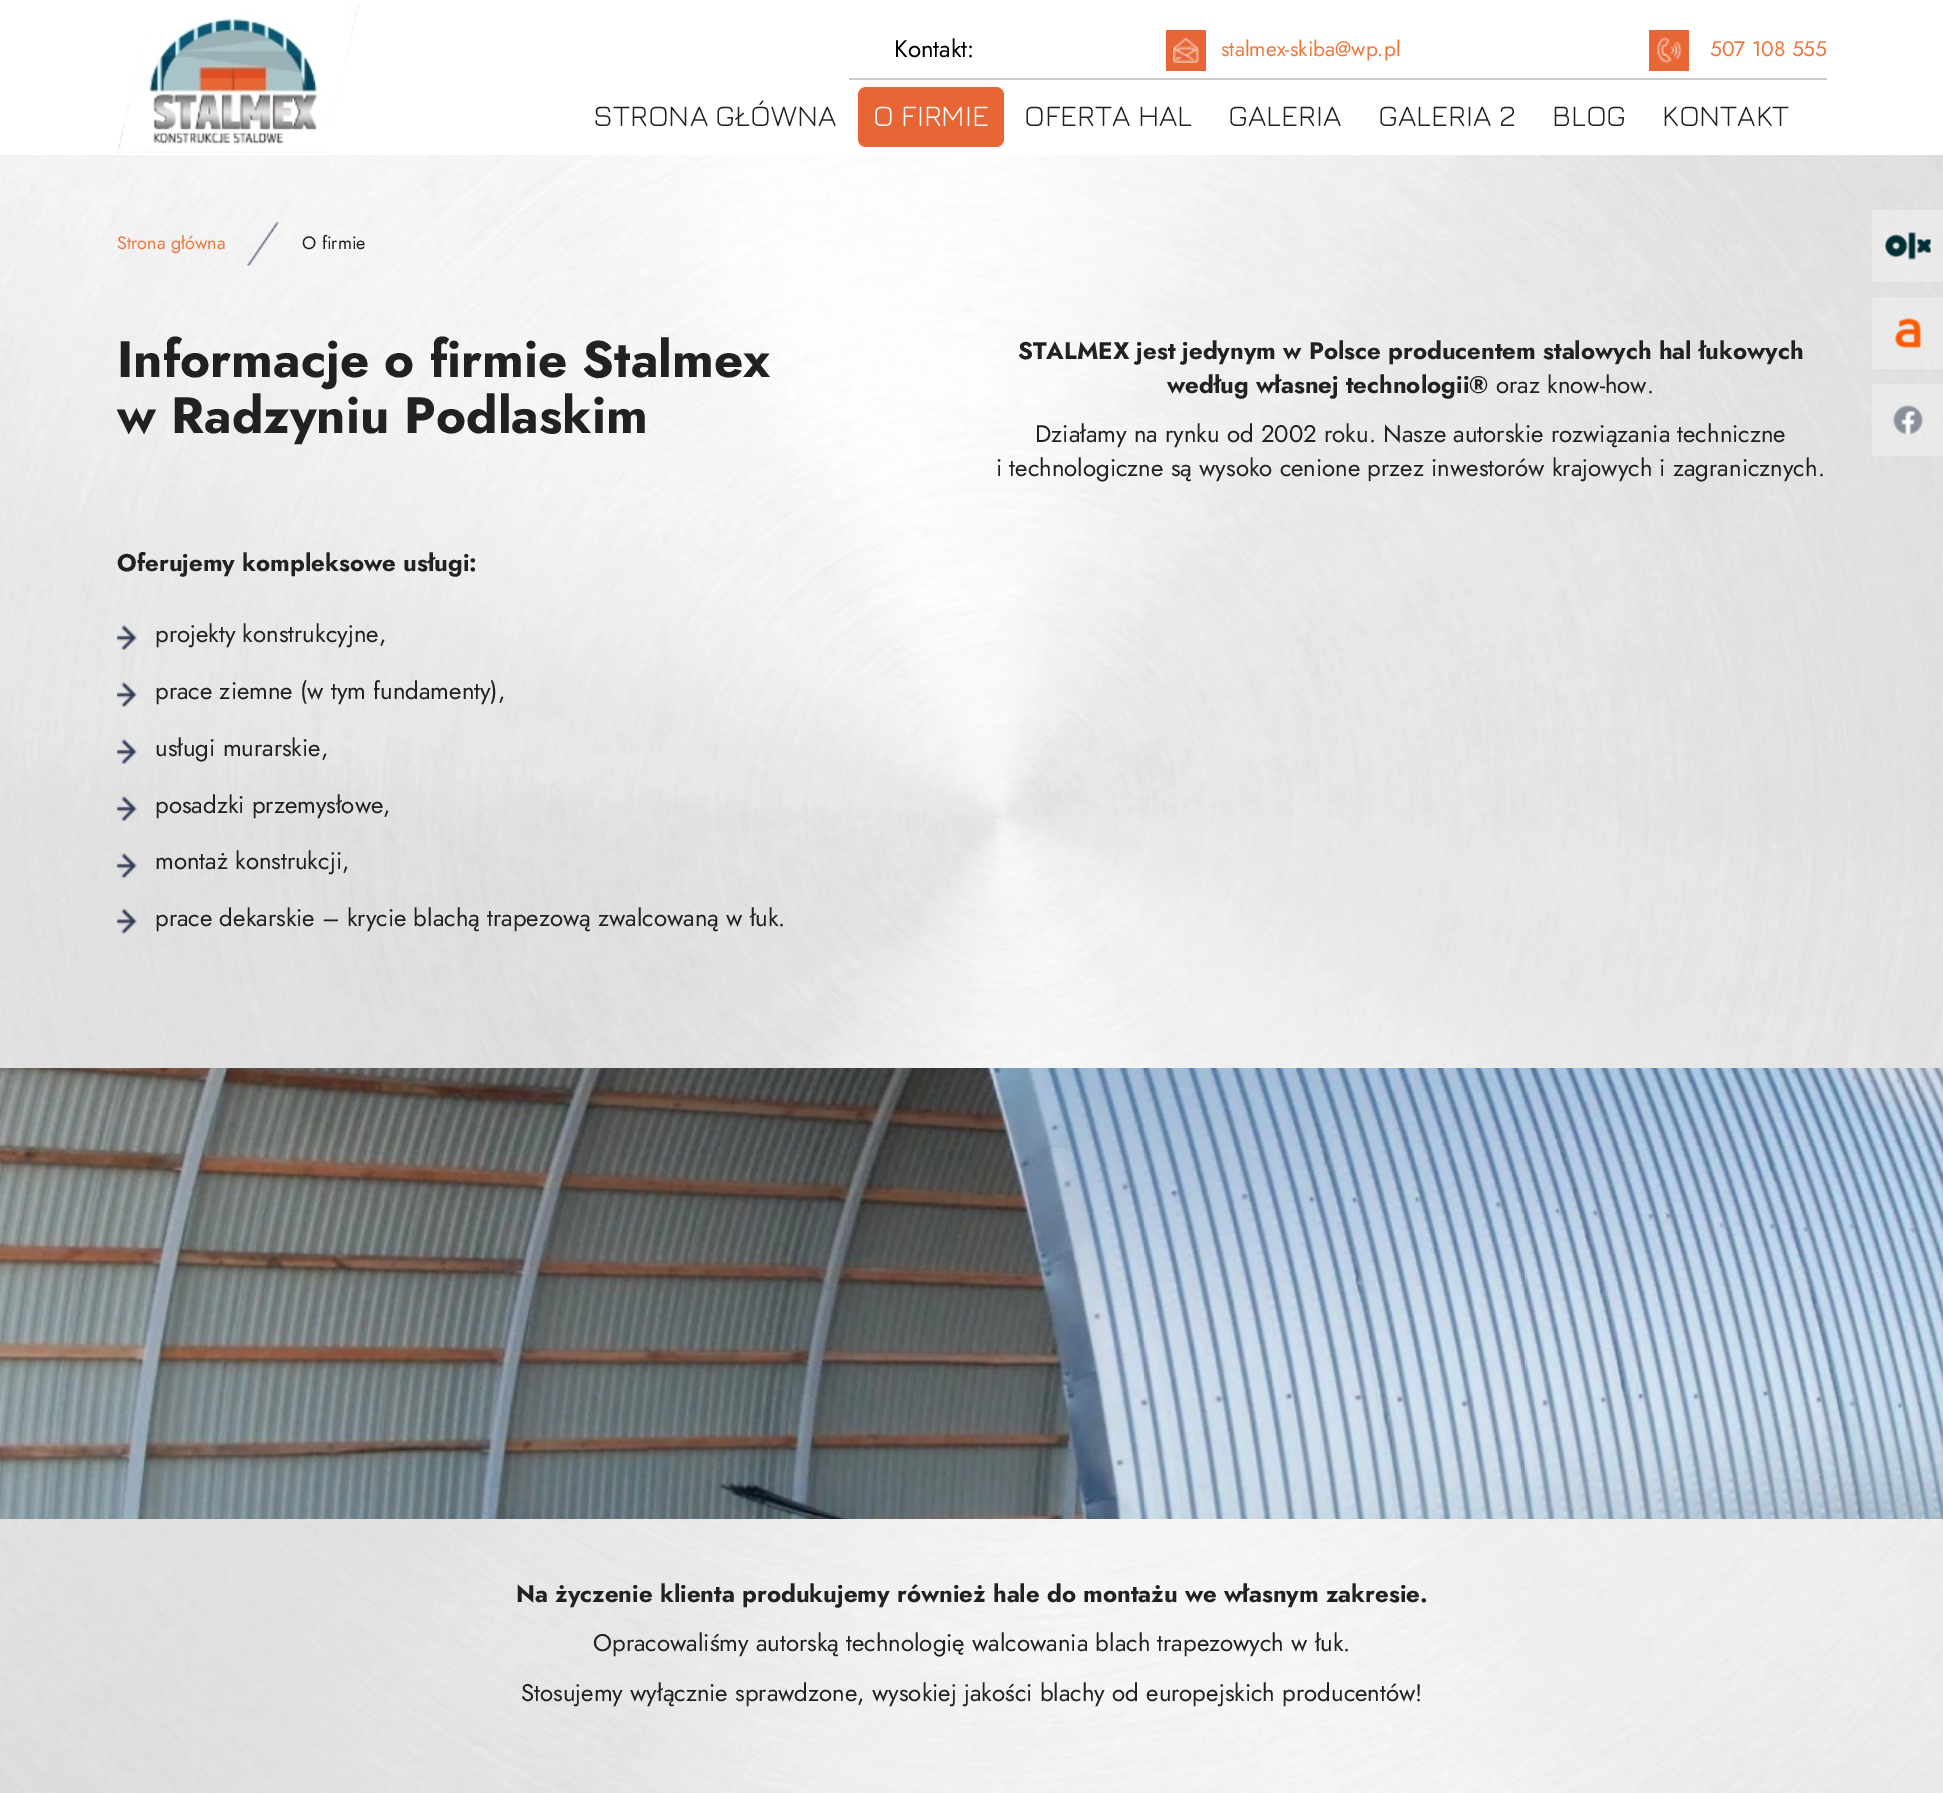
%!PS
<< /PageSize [1943 1793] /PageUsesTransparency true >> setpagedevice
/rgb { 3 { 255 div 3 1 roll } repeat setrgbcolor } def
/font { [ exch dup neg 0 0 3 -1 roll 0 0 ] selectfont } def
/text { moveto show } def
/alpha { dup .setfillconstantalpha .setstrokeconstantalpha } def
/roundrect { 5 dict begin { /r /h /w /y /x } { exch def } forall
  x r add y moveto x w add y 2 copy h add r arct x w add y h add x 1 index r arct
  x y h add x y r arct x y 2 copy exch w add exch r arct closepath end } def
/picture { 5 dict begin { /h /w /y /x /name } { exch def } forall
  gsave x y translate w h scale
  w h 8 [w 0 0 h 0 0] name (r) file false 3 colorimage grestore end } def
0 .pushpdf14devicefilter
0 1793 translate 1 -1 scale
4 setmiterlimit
255 255 255 rgb
0 0 1943 1793 rectfill
(img_01.rgb) 117 3 243 150 picture
204 204 204 rgb
849 78 978 2 rectfill
232 102 53 rgb
1166 30 40 41 rectfill
(img_02.rgb) 1173 37 26 26 picture
1649 30 40 41 rectfill
(img_03.rgb) 1657 37 25 26 picture
858 87 146 60 8 roundrect fill
(img_15.rgb) 0 155 1943 1638 picture
(img_04.rgb) 247 222 32 44 picture
(img_05.rgb) 117 625 20 25 picture
(img_06.rgb) 117 682 20 25 picture
(img_07.rgb) 117 739 20 25 picture
(img_08.rgb) 117 796 20 25 picture
(img_09.rgb) 117 853 20 25 picture
(img_10.rgb) 117 909 20 25 picture
(img_11.rgb) 0 1068 1943 451 picture
0.3 alpha
255 255 255 rgb
1872 210 71 72 rectfill
1 alpha
(img_12.rgb) 1885 232 46 28 picture
0.3 alpha
1872 297 71 72 rectfill
1 alpha
(img_13.rgb) 1895 318 26 30 picture
0.3 alpha
1872 384 71 72 rectfill
1 alpha
(img_14.rgb) 1893 405 30 30 picture
/Jost-Regular 24 font
0 0 0 rgb
(Kontakt:) 894 57 text
/Jost-Regular 21 font
236 119 59 rgb
(stalmex-skiba@wp.pl) 1221 56 text
(507 108 555) 1710 56 text
/Jura-Regular 30 font
33 33 33 rgb
(STRONA GŁÓWNA) 593 126 text
255 255 255 rgb
(O FIRMIE) 873 126 text
33 33 33 rgb
(OFERTA HAL) 1024 126 text
(GALERIA) 1228 126 text
(GALERIA 2) 1378 126 text
(BLOG) 1552 126 text
(KONTAKT) 1662 126 text
/Jost-Regular 18 font
236 119 59 rgb
(Strona główna) 117 249 text
33 33 33 rgb
(O firmie) 302 249 text
/Jost-Bold 51 font
(Informacje o firmie Stalmex) 117 377 text
(w Radzyniu Podlaskim) 117 433 text
/Jost-Bold 24 font
(STALMEX jest jedynym w Polsce producentem stalowych hal łukowych) 1018 359 text
(według własnej technologii®) 1167 393 text
/Jost-Regular 24 font
(oraz know-how.) 1496 393 text
(Działamy na rynku od 2002 roku. Nasze autorskie rozwiązania techniczne) 1035 442 text
(i technologiczne są wysoko cenione przez inwestorów krajowych i zagranicznych.) 996 476 text
/Jost-Bold 24 font
(Oferujemy kompleksowe usługi:) 117 571 text
/Jost-Regular 24 font
(projekty konstrukcyjne,) 155 642 text
(prace ziemne \(w tym fundamenty\),) 155 699 text
(usługi murarskie,) 155 756 text
(posadzki przemysłowe,) 155 813 text
(montaż konstrukcji,) 155 869 text
(prace dekarskie – krycie blachą trapezową zwalcowaną w łuk.) 155 926 text
/Jost-Bold 24 font
(Na życzenie klienta produkujemy również hale do montażu we własnym zakresie.) 516 1602 text
/Jost-Regular 24 font
(Opracowaliśmy autorską technologię walcowania blach trapezowych w łuk.) 593 1651 text
(Stosujemy wyłącznie sprawdzone, wysokiej jakości blachy od europejskich producentów!) 521 1701 text
.poppdf14devicefilter showpage
